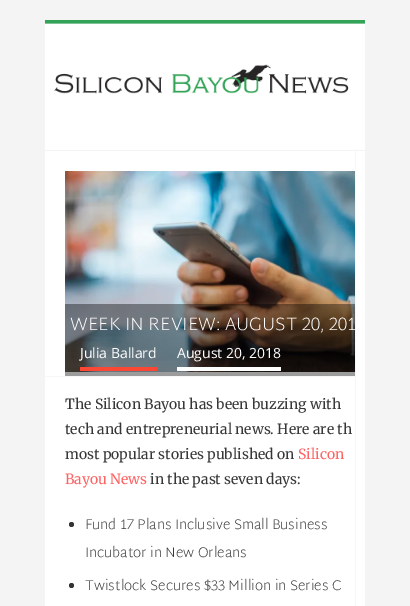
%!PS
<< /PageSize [410 606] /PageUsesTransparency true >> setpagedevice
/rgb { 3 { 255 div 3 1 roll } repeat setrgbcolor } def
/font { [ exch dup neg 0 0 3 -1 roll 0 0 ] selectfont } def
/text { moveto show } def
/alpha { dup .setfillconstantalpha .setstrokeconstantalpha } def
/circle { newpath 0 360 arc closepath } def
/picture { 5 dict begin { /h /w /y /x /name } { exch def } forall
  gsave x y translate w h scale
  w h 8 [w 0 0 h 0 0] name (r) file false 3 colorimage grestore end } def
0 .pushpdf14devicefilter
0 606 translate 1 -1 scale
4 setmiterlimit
244 244 244 rgb
0 0 410 606 rectfill
51 164 87 rgb
45 20 320 3 rectfill
127 194 149 rgb
45 23 320 1 rectfill
255 255 255 rgb
45 24 320 126 rectfill
(img_01.rgb) 54 64 295 30 picture
45 151 320 455 rectfill
247 247 247 rgb
355 151 1 455 rectfill
(img_02.rgb) 65 171 290 201 picture
0.39 alpha
0 0 0 rgb
65 304 290 72 rectfill
1 alpha
251 72 52 rgb
80 367 77 4 rectfill
255 255 255 rgb
177 367 104 4 rectfill
247 247 247 rgb
45 376 310 1 rectfill
51 51 51 rgb
71.5 524.5 2.5 circle fill
71.5 585.5 2.5 circle fill
/MartelSans-Light 18 font
255 255 255 rgb
(WEEK IN REVIEW: AUGUST 20, 201) 70 330 text
/OpenSans-Regular 14 font
(Julia Ballard) 80 358 text
(August 20, 2018) 177 358 text
/Merriweather-Light 14 font
55 55 55 rgb
(The Silicon Bayou has been buzzing with) 65 409 text
(tech and entrepreneurial news. Here are th) 65 434 text
(most popular stories published on) 65 459 text
255 100 100 rgb
(Silicon) 298 459 text
(Bayou News) 65 484 text
55 55 55 rgb
(in the past seven days:) 150 484 text
/MartelSans-Light 14 font
(Fund 17 Plans Inclusive Small Business) 85 529 text
(Incubator in New Orleans) 85 557 text
(Twistlock Secures $33 Million in Series C) 85 590 text
.poppdf14devicefilter showpage
